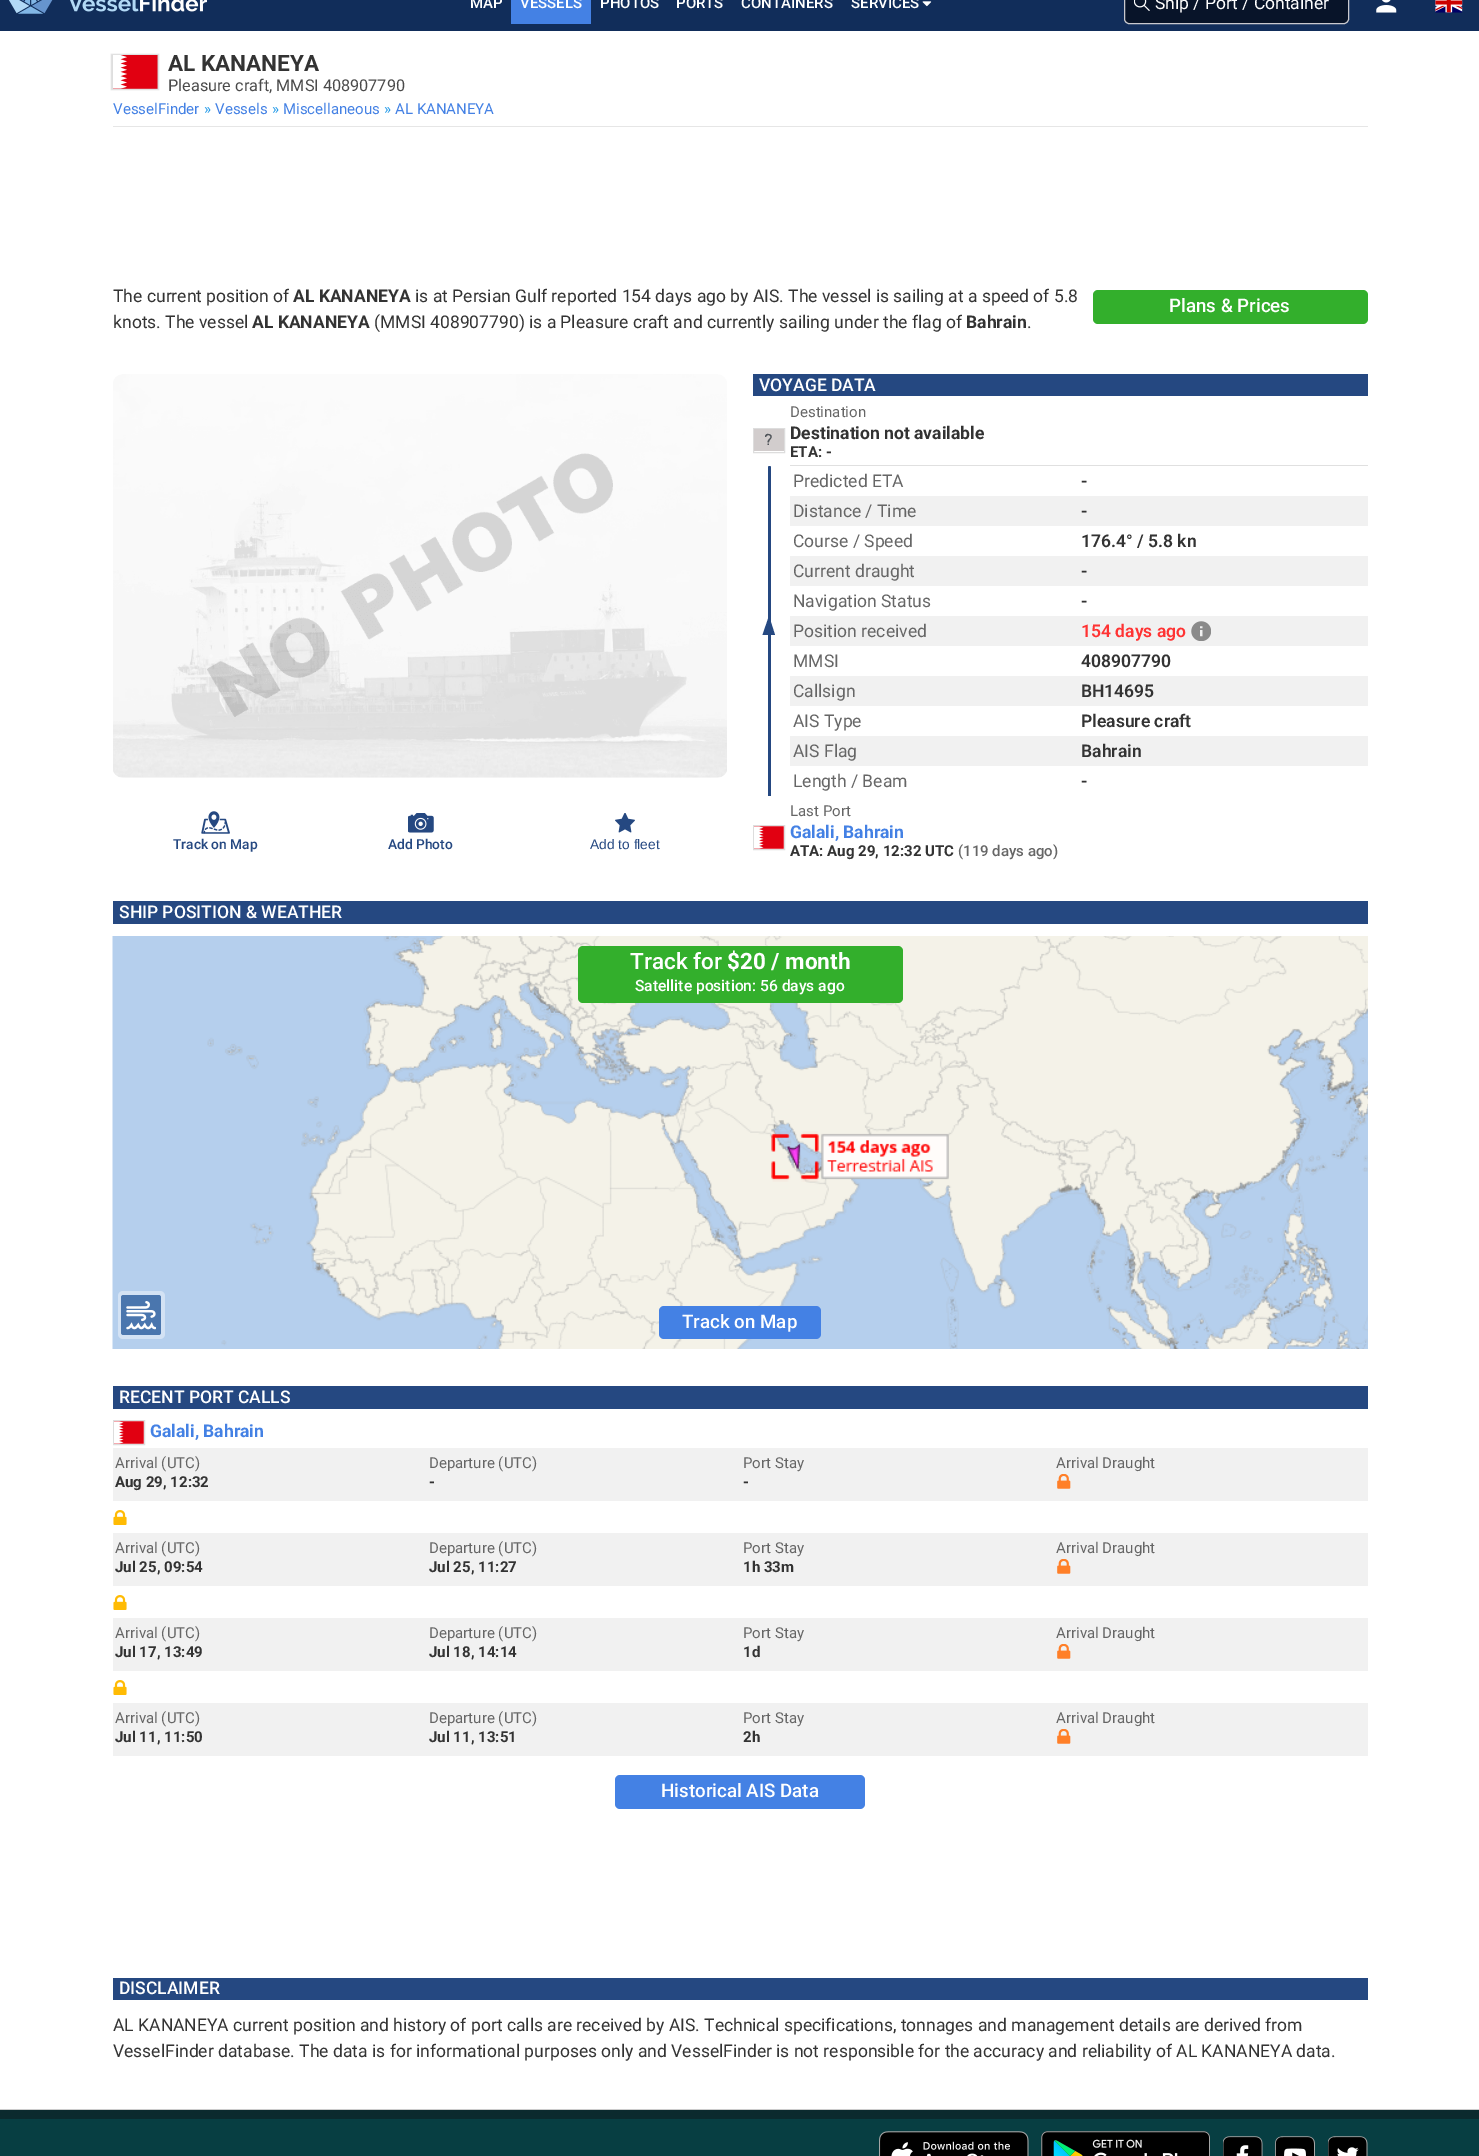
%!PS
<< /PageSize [1479 2156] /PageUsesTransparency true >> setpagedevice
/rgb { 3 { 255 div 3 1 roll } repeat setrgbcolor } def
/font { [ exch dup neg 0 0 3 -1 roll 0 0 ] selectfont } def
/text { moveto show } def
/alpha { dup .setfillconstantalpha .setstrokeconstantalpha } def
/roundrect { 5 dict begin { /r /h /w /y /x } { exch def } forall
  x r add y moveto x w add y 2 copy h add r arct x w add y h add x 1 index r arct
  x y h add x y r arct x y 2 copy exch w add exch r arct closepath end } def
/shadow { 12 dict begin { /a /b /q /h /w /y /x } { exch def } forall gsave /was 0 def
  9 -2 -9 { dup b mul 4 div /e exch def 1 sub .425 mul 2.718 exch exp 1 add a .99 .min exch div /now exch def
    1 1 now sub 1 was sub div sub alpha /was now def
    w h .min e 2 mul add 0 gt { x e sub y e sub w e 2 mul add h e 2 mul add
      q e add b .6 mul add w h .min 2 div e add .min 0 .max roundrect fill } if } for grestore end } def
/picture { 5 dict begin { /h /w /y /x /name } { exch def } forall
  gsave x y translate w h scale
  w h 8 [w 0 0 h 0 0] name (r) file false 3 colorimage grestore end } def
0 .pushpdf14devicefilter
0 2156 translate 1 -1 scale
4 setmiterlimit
255 255 255 rgb
0 0 1479 2156 rectfill
17 45 90 rgb
0 0 1479 31 rectfill
(img_01.rgb) 9 0 44 14 picture
(img_02.rgb) 70 0 137 12 picture
68 129 228 rgb
511 0 80 24 rectfill
(img_03.rgb) 922 1 10 6 picture
8 20 41 rgb
1124.5 -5.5 224 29 4.5 roundrect gsave fill grestore
201 201 206 rgb
stroke
(img_04.rgb) 1134 0 16 11 picture
(img_05.rgb) 1376 0 21 13 picture
(img_06.rgb) 1435 0 28 13 picture
230 230 230 rgb
113 126 1255 1 rectfill
221 221 221 rgb
111 54 48 36 0 0.5 1 shadow
204 204 204 rgb
113 55 45 34 rectfill
(img_07.rgb) 113 55 45 34 picture
51 175 44 rgb
1093 290 275 34 5 roundrect fill
(img_08.rgb) 113 374 614 404 picture
(img_09.rgb) 201 811 29 23 picture
(img_10.rgb) 408 813 26 20 picture
(img_11.rgb) 615 813 20 20 picture
37 72 129 rgb
753 374 615 22 rectfill
221 221 221 rgb
753.5 428.5 31 24 rectstroke
210 205 205 rgb
754 429 30 22 rectfill
79 84 89 rgb
767.5 442.5 moveto 0 -3.5 3 -3.5 3 -5.5 rcurveto 0 -2.5 -4 -2.5 -4.5 0 rcurveto -1 0 rlineto 0 -2 1.5 -3.5 3.5 -3 rcurveto 1 0 2 0.5 2.5 1 rcurveto 2.5 3 -2 4 -2 7.5 rcurveto closepath 767.5 445 moveto 0 -1.5 rlineto 1.5 0 rlineto 0 1.5 rlineto closepath fill
224 224 224 rgb
790 465 578 1 rectfill
37 72 129 rgb
768 466 3 330 1.5 roundrect fill
775 635 moveto -12.5 0 rlineto 6.5 -19 rlineto closepath fill
768 794 3 2 rectfill
241 241 241 rgb
790 496 578 30 rectfill
790 556 578 30 rectfill
790 616 578 30 rectfill
(img_12.rgb) 1191 621 20 20 picture
790 676 578 30 rectfill
790 736 578 30 rectfill
221 221 221 rgb
753.5 825.5 31 24 rectstroke
(img_13.rgb) 754 826 30 23 picture
37 72 129 rgb
113 901 1255 23 rectfill
(img_14.rgb) 112 936 1256 413 picture
211 226 244 rgb
118 1291 47 48 5 roundrect fill
74 118 174 rgb
121 1295 40 40 2.5 roundrect fill
(img_15.rgb) 126 1301 30 29 picture
51 175 44 rgb
578 946 325 57 5 roundrect fill
68 129 228 rgb
659 1306 162 33 5 roundrect fill
37 72 129 rgb
113 1386 1255 23 rectfill
221 221 221 rgb
113.5 1420.5 31 24 rectstroke
(img_13.rgb) 114 1421 30 23 picture
241 241 241 rgb
113 1448 1255 53 rectfill
(img_16.rgb) 1057 1474 14 15 picture
(img_17.rgb) 113 1510 14 15 picture
113 1533 1255 53 rectfill
(img_16.rgb) 1057 1559 14 15 picture
(img_17.rgb) 113 1595 14 15 picture
113 1618 1255 53 rectfill
(img_16.rgb) 1057 1644 14 15 picture
(img_17.rgb) 113 1680 14 15 picture
113 1703 1255 53 rectfill
(img_16.rgb) 1057 1729 14 15 picture
68 129 228 rgb
615 1775 250 34 5 roundrect fill
37 72 129 rgb
113 1978 1255 22 rectfill
7 62 66 rgb
0 2119 1479 37 rectfill
11 42 46 rgb
0 2110 1479 9 rectfill
204 204 204 rgb
0 2109 1479 1 rectfill
(img_18.rgb) 879 2131 150 25 picture
(img_19.rgb) 1041 2131 169 25 picture
(img_20.rgb) 1223 2136 40 20 picture
(img_21.rgb) 1275 2136 40 20 picture
(img_22.rgb) 1328 2136 40 20 picture
/Roboto-Medium 15 font
255 255 255 rgb
(MAP) 470 8 text
(VESSELS) 520 8 text
(PHOTOS) 600 8 text
(PORTS) 676 8 text
(CONTAINERS) 741 8 text
(SERVICES) 851 8 text
/Roboto-Regular 17.5 font
(Ship / Port / Container) 1155 9 text
/Roboto-Bold 22.5 font
51 51 51 rgb
(AL KANANEYA) 168 71 text
/Roboto-Regular 16.25 font
74 74 74 rgb
(Pleasure craft, MMSI 408907790) 168 91 text
/Roboto-Regular 15 font
68 129 228 rgb
(VesselFinder) 113 114 text
33 153 232 rgb
(») 204 114 text
68 129 228 rgb
(Vessels) 215 114 text
33 153 232 rgb
(») 272 114 text
68 129 228 rgb
(Miscellaneous) 283 114 text
33 153 232 rgb
(») 384 114 text
68 129 228 rgb
(AL KANANEYA) 395 114 text
/Roboto-Regular 17.5 font
51 51 51 rgb
(The current position of) 113 302 text
/Roboto-Bold 17.5 font
(AL KANANEYA) 293 302 text
/Roboto-Regular 17.5 font
(is at Persian Gulf reported 154 days ago by AIS. The vessel is sailing at a speed of 5.8) 415 302 text
(knots. The vessel) 113 328 text
/Roboto-Bold 17.5 font
(AL KANANEYA) 252 328 text
/Roboto-Regular 17.5 font
(\(MMSI 408907790\) is a Pleasure craft and currently sailing under the flag of) 374 328 text
/Roboto-Bold 17.5 font
(Bahrain) 966 328 text
/Roboto-Regular 17.5 font
(.) 1027 328 text
/Roboto-Medium 18.75 font
255 255 255 rgb
(Plans & Prices) 1169 312 text
/Roboto-Medium 13.75 font
37 72 129 rgb
(Track on Map) 173 849 text
(Add Photo) 388 849 text
/LiberationSans-Regular 13.75 font
(Add to fleet) 590 849 text
/Roboto-Medium 17.5 font
255 255 255 rgb
(VOYAGE DATA) 759 391 text
/Roboto-Regular 15 font
102 102 102 rgb
(Destination) 790 417 text
/Roboto-Bold 17.5 font
51 51 51 rgb
(Destination not available) 790 439 text
/Roboto-Bold 15 font
(ETA: -) 790 457 text
/Roboto-Regular 17.5 font
102 102 102 rgb
(Predicted ETA) 793 487 text
/Roboto-SemiBold 17.5 font
51 51 51 rgb
(-) 1081 487 text
/Roboto-Regular 17.5 font
102 102 102 rgb
(Distance / Time) 793 517 text
/Roboto-SemiBold 17.5 font
51 51 51 rgb
(-) 1081 517 text
/Roboto-Regular 17.5 font
102 102 102 rgb
(Course / Speed) 793 547 text
/Roboto-SemiBold 17.5 font
51 51 51 rgb
(176.4° / 5.8 kn) 1081 547 text
/Roboto-Regular 17.5 font
102 102 102 rgb
(Current draught) 793 577 text
/Roboto-SemiBold 17.5 font
51 51 51 rgb
(-) 1081 577 text
/Roboto-Regular 17.5 font
102 102 102 rgb
(Navigation Status) 793 607 text
/Roboto-SemiBold 17.5 font
51 51 51 rgb
(-) 1081 607 text
/Roboto-Regular 17.5 font
102 102 102 rgb
(Position received) 793 637 text
/Roboto-SemiBold 17.5 font
255 51 51 rgb
(154 days ago) 1081 637 text
/Roboto-Regular 17.5 font
102 102 102 rgb
(MMSI) 793 667 text
/Roboto-SemiBold 17.5 font
51 51 51 rgb
(408907790) 1081 667 text
/Roboto-Regular 17.5 font
102 102 102 rgb
(Callsign) 793 697 text
/Roboto-SemiBold 17.5 font
51 51 51 rgb
(BH14695) 1081 697 text
/Roboto-Regular 17.5 font
102 102 102 rgb
(AIS Type) 793 727 text
/Roboto-SemiBold 17.5 font
51 51 51 rgb
(Pleasure craft) 1081 727 text
/Roboto-Regular 17.5 font
102 102 102 rgb
(AIS Flag) 793 757 text
/Roboto-SemiBold 17.5 font
51 51 51 rgb
(Bahrain) 1081 757 text
/Roboto-Regular 17.5 font
102 102 102 rgb
(Length / Beam) 793 787 text
/Roboto-SemiBold 17.5 font
51 51 51 rgb
(-) 1081 787 text
/Roboto-Regular 15 font
102 102 102 rgb
(Last Port) 790 816 text
/Roboto-Bold 17.5 font
68 129 228 rgb
(Galali, Bahrain) 790 838 text
/Roboto-Bold 15 font
51 51 51 rgb
(ATA: Aug 29, 12:32 UTC) 790 856 text
/Roboto-Medium 15 font
102 102 102 rgb
(\(119 days ago\)) 958 856 text
/Roboto-Medium 17.5 font
255 255 255 rgb
(SHIP POSITION & WEATHER) 119 918 text
/Roboto-Medium 22.5 font
(Track for) 630 969 text
/Roboto-Bold 22.5 font
($20 / month) 727 969 text
/Roboto-Medium 15.6 font
(Satellite position: 56 days ago) 635 991 text
/Roboto-Medium 18.75 font
(Track on Map) 682 1328 text
/Roboto-Medium 17.5 font
(RECENT PORT CALLS) 119 1403 text
/Roboto-Bold 17.5 font
68 129 228 rgb
(Galali, Bahrain) 150 1437 text
/Roboto-Regular 15 font
102 102 102 rgb
(Arrival \(UTC\)) 115 1468 text
/Roboto-Bold 15 font
51 51 51 rgb
(Aug 29, 12:32) 115 1487 text
/Roboto-Regular 15 font
102 102 102 rgb
(Departure \(UTC\)) 429 1468 text
/Roboto-Bold 15 font
51 51 51 rgb
(-) 429 1487 text
/Roboto-Regular 15 font
102 102 102 rgb
(Port Stay) 743 1468 text
/Roboto-Bold 15 font
51 51 51 rgb
(-) 743 1487 text
/Roboto-Regular 15 font
102 102 102 rgb
(Arrival Draught) 1056 1468 text
(Arrival \(UTC\)) 115 1553 text
/Roboto-Bold 15 font
51 51 51 rgb
(Jul 25, 09:54) 115 1572 text
/Roboto-Regular 15 font
102 102 102 rgb
(Departure \(UTC\)) 429 1553 text
/Roboto-Bold 15 font
51 51 51 rgb
(Jul 25, 11:27) 429 1572 text
/Roboto-Regular 15 font
102 102 102 rgb
(Port Stay) 743 1553 text
/Roboto-Bold 15 font
51 51 51 rgb
(1h 33m) 743 1572 text
/Roboto-Regular 15 font
102 102 102 rgb
(Arrival Draught) 1056 1553 text
(Arrival \(UTC\)) 115 1638 text
/Roboto-Bold 15 font
51 51 51 rgb
(Jul 17, 13:49) 115 1657 text
/Roboto-Regular 15 font
102 102 102 rgb
(Departure \(UTC\)) 429 1638 text
/Roboto-Bold 15 font
51 51 51 rgb
(Jul 18, 14:14) 429 1657 text
/Roboto-Regular 15 font
102 102 102 rgb
(Port Stay) 743 1638 text
/Roboto-Bold 15 font
51 51 51 rgb
(1d) 743 1657 text
/Roboto-Regular 15 font
102 102 102 rgb
(Arrival Draught) 1056 1638 text
(Arrival \(UTC\)) 115 1723 text
/Roboto-Bold 15 font
51 51 51 rgb
(Jul 11, 11:50) 115 1742 text
/Roboto-Regular 15 font
102 102 102 rgb
(Departure \(UTC\)) 429 1723 text
/Roboto-Bold 15 font
51 51 51 rgb
(Jul 11, 13:51) 429 1742 text
/Roboto-Regular 15 font
102 102 102 rgb
(Port Stay) 743 1723 text
/Roboto-Bold 15 font
51 51 51 rgb
(2h) 743 1742 text
/Roboto-Regular 15 font
102 102 102 rgb
(Arrival Draught) 1056 1723 text
/Roboto-Medium 18.75 font
255 255 255 rgb
(Historical AIS Data) 661 1797 text
/Roboto-Medium 17.5 font
(DISCLAIMER) 119 1994 text
/Roboto-Regular 17.5 font
51 51 51 rgb
(AL KANANEYA current position and history of port calls are received by AIS. Technical specifications, tonnages and management details are derived from) 113 2031 text
(VesselFinder database. The data is for informational purposes only and VesselFinder is not responsible for the accuracy and reliability of AL KANANEYA data.) 113 2057 text
.poppdf14devicefilter showpage
